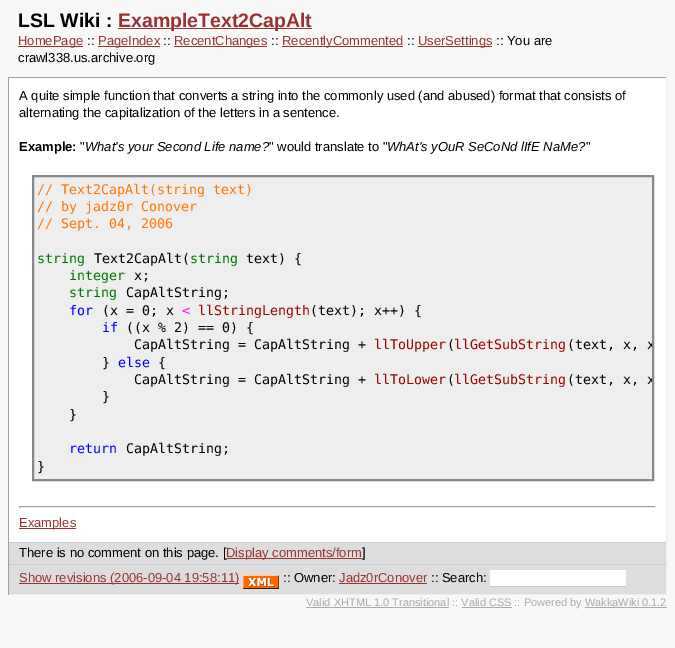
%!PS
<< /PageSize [675 648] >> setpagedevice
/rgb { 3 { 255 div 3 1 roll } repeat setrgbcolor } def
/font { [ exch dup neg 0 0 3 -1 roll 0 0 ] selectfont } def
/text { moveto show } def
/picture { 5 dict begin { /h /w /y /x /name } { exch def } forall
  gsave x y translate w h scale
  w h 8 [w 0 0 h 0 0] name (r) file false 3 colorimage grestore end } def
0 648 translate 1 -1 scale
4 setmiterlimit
248 248 248 rgb
0 0 675 648 rectfill
153 51 51 rgb
118 28 194 1 rectfill
18 46 65 1 rectfill
98 46 62 1 rectfill
174 46 93 1 rectfill
282 46 121 1 rectfill
418 46 74 1 rectfill
255 255 255 rgb
9 78 657 464 rectfill
159 159 159 rgb
8 77 659 1 rectfill
238 238 238 rgb
666 77 1 465 rectfill
159 159 159 rgb
8 77 1 465 rectfill
238 238 238 rgb
33 176 moveto 620 0 rlineto 0 304 rlineto -620 0 rlineto closepath gsave fill grestore
136 136 136 rgb
2 setlinewidth
stroke
159 159 159 rgb
19 506 637 1 rectfill
238 238 238 rgb
655 506 1 2 rectfill
19 507 637 1 rectfill
159 159 159 rgb
19 506 1 2 rectfill
153 51 51 rgb
19 528 57 1 rectfill
221 221 221 rgb
9 543 657 21 rectfill
204 204 204 rgb
8 542 659 1 rectfill
238 238 238 rgb
666 542 1 22 rectfill
159 159 159 rgb
8 542 1 22 rectfill
221 221 221 rgb
9 565 657 29 rectfill
204 204 204 rgb
8 564 659 1 rectfill
238 238 238 rgb
666 564 1 31 rectfill
8 594 659 1 rectfill
159 159 159 rgb
8 564 1 31 rectfill
153 51 51 rgb
19 583 220 1 rectfill
(img_01.rgb) 243 575 36 14 picture
339 583 88 1 rectfill
255 255 255 rgb
490 570 136 16 rectfill
204 204 170 rgb
490 586 136 1 rectfill
170 170 170 rgb
306 607 143 1 rectfill
462 607 50 1 rectfill
585 607 82 1 rectfill
/LiberationSans-Bold 19.5 font
0 0 0 rgb
(LSL Wiki :) 18 27 text
153 51 51 rgb
(ExampleText2CapAlt) 118 27 text
/LiberationSans-Regular 13 font
(HomePage) 18 45 text
0 0 0 rgb
(::) 87 45 text
153 51 51 rgb
(PageIndex) 98 45 text
0 0 0 rgb
(::) 163 45 text
153 51 51 rgb
(RecentChanges) 174 45 text
0 0 0 rgb
(::) 271 45 text
153 51 51 rgb
(RecentlyCommented) 282 45 text
0 0 0 rgb
(::) 407 45 text
153 51 51 rgb
(UserSettings) 418 45 text
0 0 0 rgb
(:: You are) 496 45 text
(crawl338.us.archive.org) 18 62 text
(A quite simple function that converts a string into the commonly used \(and abused\) format that consists of) 19 100 text
(alternating the capitalization of the letters in a sentence.) 19 117 text
/LiberationSans-Bold 13 font
(Example:) 19 151 text
/LiberationSans-Regular 13 font
(") 80 151 text
/LiberationSans-Italic 13 font
(What's your Second Life name?) 85 151 text
/LiberationSans-Regular 13 font
(" would translate to ") 269 151 text
/LiberationSans-Italic 13 font
(WhAt's yOuR SeCoNd lIfE NaMe?) 387 151 text
/LiberationSans-Regular 13 font
(") 586 151 text
/DejaVuSansMono-Regular 13.3 font
255 119 0 rgb
(// Text2CapAlt\(string text\)) 37 194 text
(// by jadz0r Conover) 37 211 text
(// Sept. 04, 2006) 37 228 text
0 119 0 rgb
(string) 37 263 text
0 0 0 rgb
(Text2CapAlt\() 94 263 text
0 119 0 rgb
(string) 190 263 text
0 0 0 rgb
(text\) {) 246 263 text
0 119 0 rgb
(integer) 69 280 text
0 0 0 rgb
(x;) 134 280 text
0 119 0 rgb
(string) 69 297 text
0 0 0 rgb
(CapAltString;) 126 297 text
0 0 255 rgb
(for) 69 315 text
0 0 0 rgb
(\(x = 0; x) 102 315 text
255 0 255 rgb
(<) 182 315 text
160 0 0 rgb
(llStringLength) 198 315 text
0 0 0 rgb
(\(text\); x++\) {) 310 315 text
0 0 255 rgb
(if) 102 332 text
0 0 0 rgb
(\(\(x % 2\) == 0\) {) 126 332 text
(CapAltString = CapAltString +) 134 349 text
160 0 0 rgb
(llToUpper llGetSubString) 374 349 text
0 0 0 rgb
(\() 447 349 text
gsave
34 177 618 302 rectclip
(\(text, x, x) 567 349 text
grestore
(}) 102 367 text
0 0 255 rgb
(else) 118 367 text
0 0 0 rgb
({) 158 367 text
(CapAltString = CapAltString +) 134 384 text
160 0 0 rgb
(llToLower llGetSubString) 374 384 text
0 0 0 rgb
(\() 447 384 text
gsave
34 177 618 302 rectclip
(\(text, x, x) 567 384 text
grestore
(}) 102 401 text
(}) 69 419 text
0 0 255 rgb
(return) 69 453 text
0 0 0 rgb
(CapAltString;) 126 453 text
(}) 37 471 text
/LiberationSans-Regular 13 font
153 51 51 rgb
(Examples) 19 527 text
0 0 0 rgb
(There is no comment on this page. [) 19 557 text
153 51 51 rgb
226 558 136 1 rectfill
(Display comments/form) 226 557 text
0 0 0 rgb
(]) 362 557 text
153 51 51 rgb
(Show revisions \(2006-09-04 19:58:11\)) 19 582 text
0 0 0 rgb
(:: Owner:) 283 582 text
153 51 51 rgb
(Jadz0rConover) 339 582 text
0 0 0 rgb
(:: Search:) 431 582 text
/LiberationSans-Regular 11 font
170 170 170 rgb
(Valid XHTML 1.0 Transitional :: Valid CSS :: Powered by WakkaWiki 0.1.2) 306 606 text
showpage
